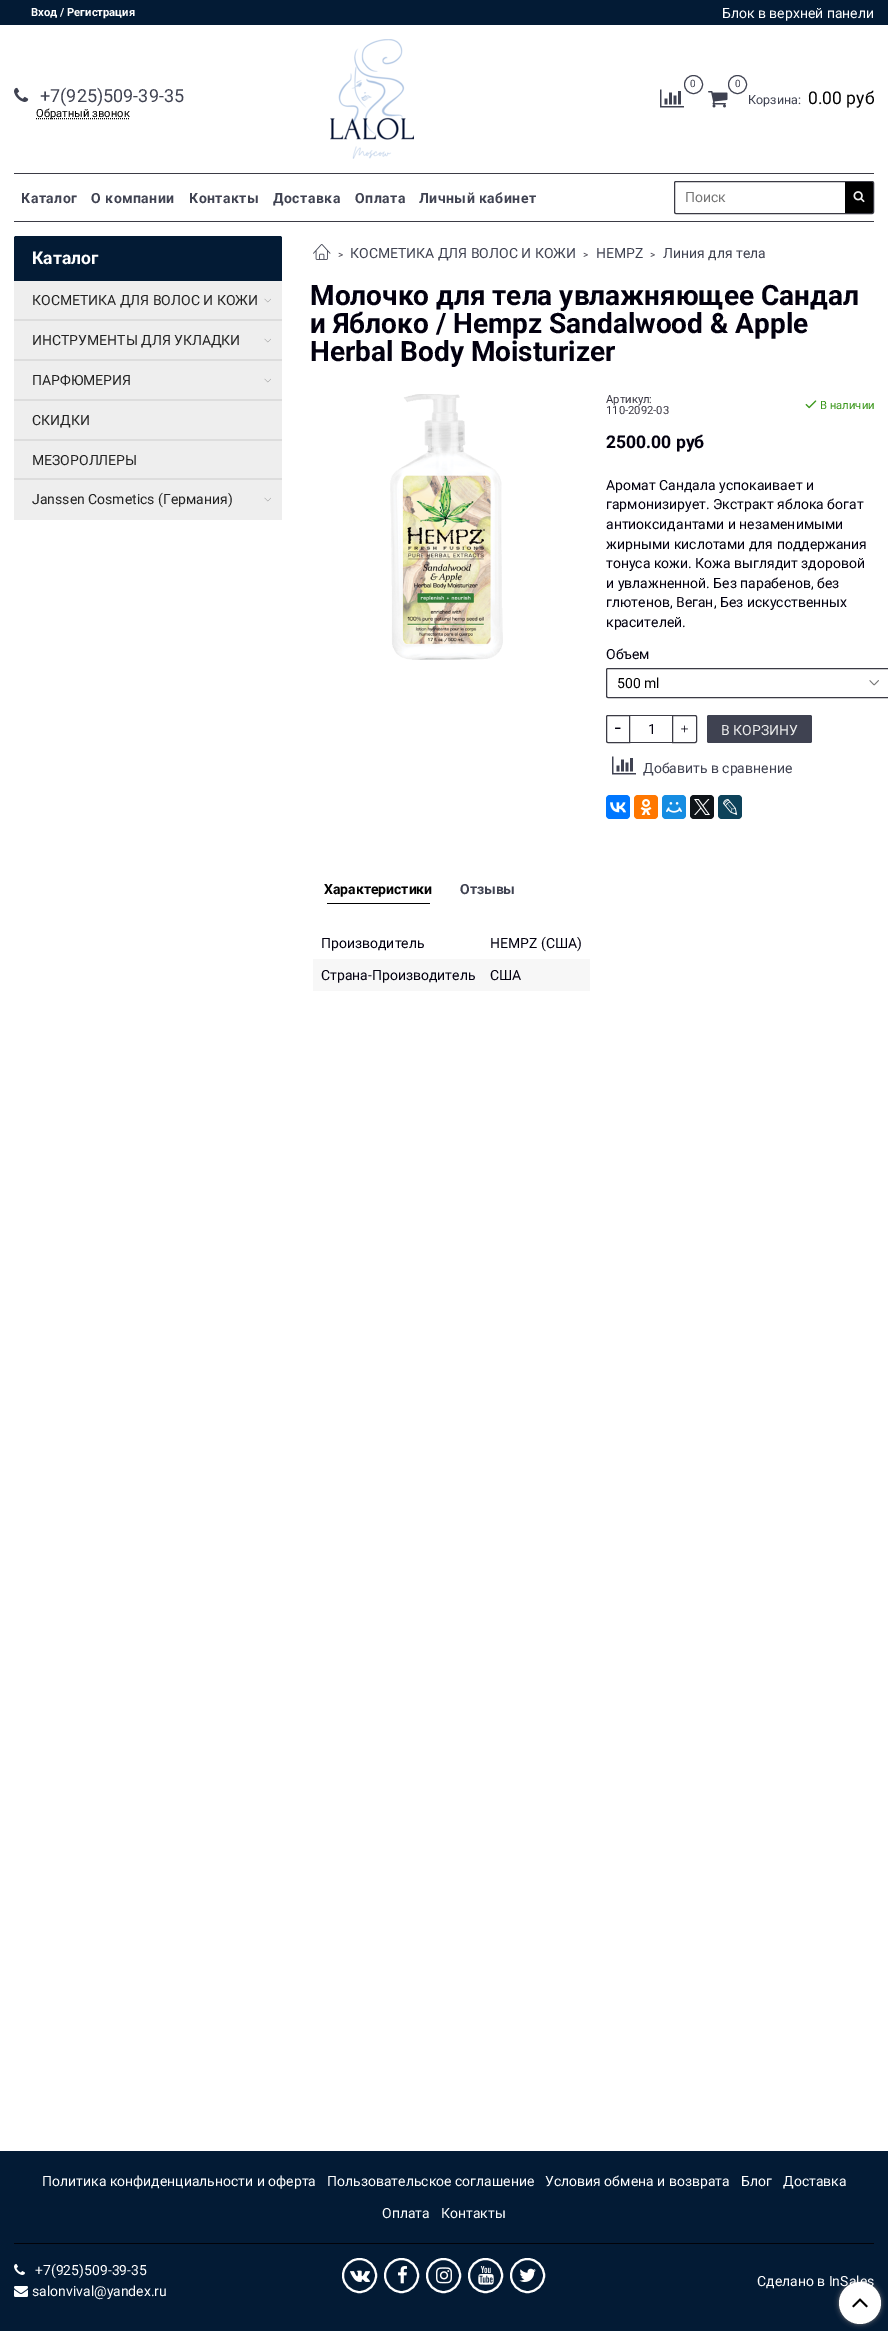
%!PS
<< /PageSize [888 2331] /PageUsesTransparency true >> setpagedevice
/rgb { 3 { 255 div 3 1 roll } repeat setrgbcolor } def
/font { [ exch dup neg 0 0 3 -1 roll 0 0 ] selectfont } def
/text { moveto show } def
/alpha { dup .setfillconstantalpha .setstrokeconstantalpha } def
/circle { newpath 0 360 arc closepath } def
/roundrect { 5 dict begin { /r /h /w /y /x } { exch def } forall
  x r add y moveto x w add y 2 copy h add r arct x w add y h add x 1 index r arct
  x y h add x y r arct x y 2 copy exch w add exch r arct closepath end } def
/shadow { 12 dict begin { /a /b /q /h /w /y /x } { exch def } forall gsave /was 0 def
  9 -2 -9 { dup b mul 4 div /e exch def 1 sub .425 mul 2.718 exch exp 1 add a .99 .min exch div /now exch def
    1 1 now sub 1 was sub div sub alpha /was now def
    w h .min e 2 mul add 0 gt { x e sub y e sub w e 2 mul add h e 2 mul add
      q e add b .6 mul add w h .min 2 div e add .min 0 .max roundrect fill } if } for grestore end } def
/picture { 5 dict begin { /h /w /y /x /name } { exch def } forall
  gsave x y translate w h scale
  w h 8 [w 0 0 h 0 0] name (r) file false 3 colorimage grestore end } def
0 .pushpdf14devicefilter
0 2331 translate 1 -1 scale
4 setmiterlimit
255 255 255 rgb
0 0 888 2331 rectfill
3 27 53 rgb
0 0 888 25 rectfill
(img_01.rgb) 14 87 15 15 picture
0 0 0 rgb
[1 1] 0 setdash
36 118.5 moveto 94 0 rlineto stroke
(img_02.rgb) 330 39 84 120 picture
63 66 81 rgb
[] 0 setdash
693.5 84.5 9 circle stroke
(img_03.rgb) 660 89 24 19 picture
737.5 84.5 9 circle stroke
(img_04.rgb) 708 91 20 17 picture
59 59 69 rgb
14 173 860 1 rectfill
14 221 860 1 rectfill
674.5 181.5 199 32 1.5 roundrect stroke
0 0 0 rgb
845 182 moveto 26.5 0 rlineto 1 0 1.5 0.5 1.5 1.5 rcurveto 0 28 rlineto 0 1 -0.5 1.5 -1.5 1.5 rcurveto -26.5 0 rlineto closepath fill
(img_05.rgb) 853 191 12 12 picture
3 27 53 rgb
16 236 moveto 264 0 rlineto 1 0 2 1 2 2 rcurveto 0 43 rlineto -268 0 rlineto 0 -43 rlineto 0 -1 1 -2 2 -2 rcurveto closepath fill
238 238 238 rgb
14 281 268 239 rectfill
221 221 221 rgb
14 319 268 2 rectfill
(img_06.rgb) 264 298 7 5 picture
14 359 268 2 rectfill
(img_06.rgb) 264 338 7 5 picture
14 399 268 2 rectfill
(img_06.rgb) 264 378 7 5 picture
14 439 268 2 rectfill
14 478 268 2 rectfill
(img_06.rgb) 264 497 7 5 picture
(img_07.rgb) 313 244 18 16 picture
(img_08.rgb) 390 394 113 266 picture
(img_09.rgb) 805 400 12 9 picture
(img_10.rgb) 869 680 10 6 picture
59 59 69 rgb
606.5 668.5 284 29 1.5 roundrect stroke
608 715.5 moveto 21.5 0 rlineto 0 27 rlineto -21.5 0 rlineto -1 0 -1.5 -0.5 -1.5 -1.5 rcurveto 0 -24 rlineto 0 -1 0.5 -1.5 1.5 -1.5 rcurveto closepath stroke
(img_11.rgb) 615 727 6 2 picture
630 715 42 1 rectfill
630 742 42 1 rectfill
672.5 715.5 moveto 22.5 0 rlineto 1 0 1.5 0.5 1.5 1.5 rcurveto 0 24 rlineto 0 1 -0.5 1.5 -1.5 1.5 rcurveto -22.5 0 rlineto closepath stroke
(img_12.rgb) 681 725 7 8 picture
63 66 81 rgb
707 715 105 28 2 roundrect fill
(img_03.rgb) 612 756 24 19 picture
0 119 255 rgb
606 795 24 24 4 roundrect fill
(img_13.rgb) 610 802 16 11 picture
255 119 0 rgb
634 795 24 24 4 roundrect fill
(img_14.rgb) 640 799 12 16 picture
22 141 226 rgb
662 795 24 24 4 roundrect fill
(img_15.rgb) 666 802 16 11 picture
15 20 25 rgb
690 795 24 24 4 roundrect fill
(img_16.rgb) 694 799 16 16 picture
13 66 90 rgb
718 795 24 24 4 roundrect fill
(img_17.rgb) 723 799 15 16 picture
0 0 0 rgb
327 903 103 1 rectfill
247 247 247 rgb
313 959 277 32 rectfill
3 27 53 rgb
0 2151 888 180 rectfill
2 3 9 rgb
14 2243 860 1 rectfill
(img_18.rgb) 14 2264 11 11 picture
(img_19.rgb) 14 2286 14 11 picture
255 255 255 rgb
2 setlinewidth
359.5 2275.5 16.5 circle stroke
(img_20.rgb) 350 2270 20 12 picture
401.5 2275.5 16.5 circle stroke
(img_21.rgb) 398 2266 9 18 picture
443.5 2275.5 16.5 circle stroke
(img_22.rgb) 436 2267 16 17 picture
485.5 2275.5 16.5 circle stroke
(img_23.rgb) 478 2266 16 19 picture
527.5 2275.5 16.5 circle stroke
(img_24.rgb) 519 2268 17 14 picture
119 119 119 rgb
839 2282 42 42 21 2.5 1 shadow
255 255 255 rgb
860 2303 21 circle fill
(img_25.rgb) 852 2298 16 10 picture
/Roboto-Bold 11.25 font
(Вход / Регистрация) 31 16 text
/Roboto-Regular 14 font
(Блок в верхней панели) 722 18 text
/Roboto-Regular 18 font
63 66 81 rgb
(+7\(925\)509-39-35) 40 102 text
/Roboto-Regular 11.25 font
0 0 0 rgb
(Обратный звонок) 36 117 text
/Roboto-Regular 10 font
63 66 81 rgb
(0) 690 87 text
(0) 735 87 text
/Roboto-Regular 12.5 font
(Корзина:) 748 104 text
/Roboto-Regular 17.5 font
0 0 0 rgb
(0.00 руб) 808 104 text
/Roboto-Bold 14 font
63 66 81 rgb
21 203 moveto 0.5 0 (Каталог) ashow
91 203 moveto 0.5 0 (О компании) ashow
189 203 moveto 0.5 0 (Контакты) ashow
273 203 moveto 0.5 0 (Доставка) ashow
355 203 moveto 0.5 0 (Оплата) ashow
419 203 moveto 0.5 0 (Личный кабинет) ashow
/Roboto-Regular 14 font
117 117 117 rgb
(Поиск) 685 202 text
/Roboto-Bold 17.5 font
255 255 255 rgb
(Каталог) 32 264 text
/Roboto-Regular 14 font
34 34 34 rgb
(КОСМЕТИКА ДЛЯ ВОЛОС И КОЖИ) 32 305 text
(ИНСТРУМЕНТЫ ДЛЯ УКЛАДКИ) 32 345 text
(ПАРФЮМЕРИЯ) 32 385 text
(СКИДКИ) 32 425 text
(МЕЗОРОЛЛЕРЫ) 32 465 text
(Janssen Cosmetics \(Германия\)) 32 504 text
/Roboto-Regular 10 font
53 51 63 rgb
(>) 338 258 text
/Roboto-Regular 14 font
63 66 81 rgb
(КОСМЕТИКА ДЛЯ ВОЛОС И КОЖИ) 350 258 text
/Roboto-Regular 10 font
53 51 63 rgb
(>) 583 258 text
/Roboto-Regular 14 font
63 66 81 rgb
(HEMPZ) 596 258 text
/Roboto-Regular 10 font
53 51 63 rgb
(>) 650 258 text
/Roboto-Regular 14 font
63 66 81 rgb
(Линия для тела) 663 258 text
/Roboto-Bold 28 font
2 0 15 rgb
(Молочко для тела увлажняющее Сандал) 310 305 text
(и Яблоко / Hempz Sandalwood & Apple) 310 333 text
(Herbal Body Moisturizer) 310 361 text
/Roboto-Regular 11.25 font
53 51 63 rgb
(Артикул:) 606 403 text
(110-2092-03) 606 414 text
60 152 29 rgb
(В наличии) 820 409 text
/Roboto-Bold 17.5 font
2 0 15 rgb
(2500.00 руб) 606 448 text
/Roboto-Regular 14 font
(Аромат Сандала успокаивает и) 606 490 text
(гармонизирует. Экстракт яблока богат) 606 509 text
(антиоксидантами и незаменимыми) 606 529 text
(жирными кислотами для поддержания) 606 549 text
(тонуса кожи. Кожа выглядит здоровой) 606 568 text
(и увлажненной. Без парабенов, без) 606 588 text
(глютенов, Веган, Без искусственных) 606 607 text
(красителей.) 606 627 text
(Объем) 606 659 text
0 0 0 rgb
(500 ml) 617 688 text
2 0 15 rgb
(1) 648 734 text
238 238 238 rgb
(В КОРЗИНУ) 721 735 text
63 66 81 rgb
(Добавить в сравнение) 643 773 text
/Roboto-Bold 14 font
0 0 0 rgb
(Характеристики) 324 894 text
63 66 81 rgb
(Отзывы) 460 894 text
/Roboto-Regular 14 font
2 0 15 rgb
(Производитель) 321 948 text
(HEMPZ \(США\)) 490 948 text
(Страна-Производитель) 321 980 text
(США) 490 980 text
255 255 255 rgb
(Политика конфиденциальности и оферта) 42 2186 text
(Пользовательское соглашение) 327 2186 text
(Условия обмена и возврата) 545 2186 text
(Блог) 741 2186 text
(Доставка) 783 2186 text
(Оплата) 382 2218 text
(Контакты) 441 2218 text
(+7\(925\)509-39-35) 35 2275 text
(salonvival@yandex.ru) 32 2296 text
(Сделано в InSales) 757 2286 text
.poppdf14devicefilter showpage
